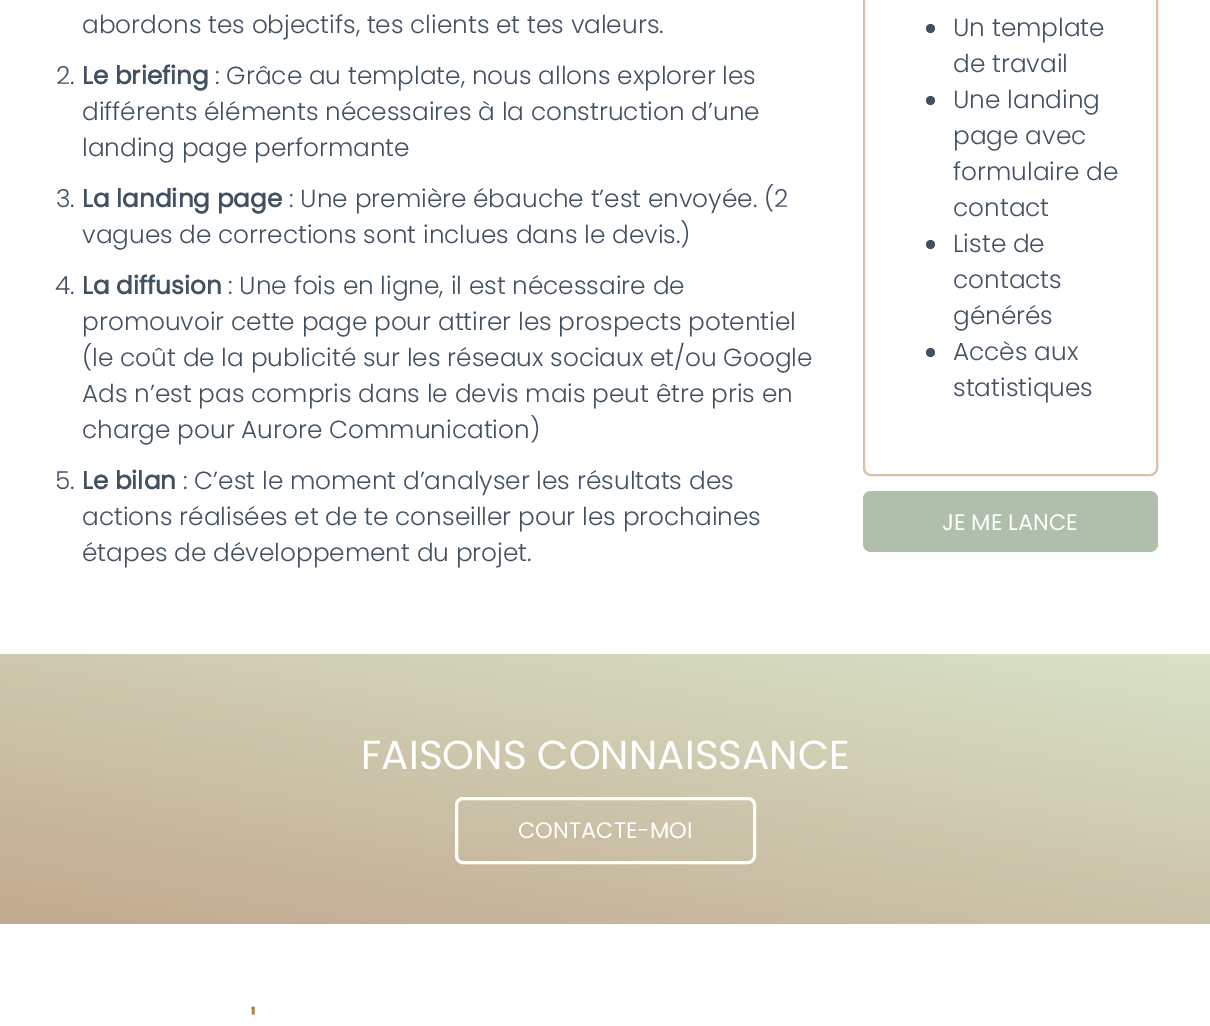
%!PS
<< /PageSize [1210 1026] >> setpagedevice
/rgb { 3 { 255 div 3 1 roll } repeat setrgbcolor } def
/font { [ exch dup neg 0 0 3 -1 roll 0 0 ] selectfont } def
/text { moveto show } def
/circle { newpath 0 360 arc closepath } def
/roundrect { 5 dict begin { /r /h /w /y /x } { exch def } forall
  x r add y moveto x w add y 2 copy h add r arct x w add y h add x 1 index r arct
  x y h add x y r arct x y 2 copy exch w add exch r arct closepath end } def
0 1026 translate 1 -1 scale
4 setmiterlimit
255 255 255 rgb
0 0 1210 1026 rectfill
217 192 166 rgb
2 setlinewidth
864 -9 293 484 7 roundrect stroke
65 81 97 rgb
930.5 28.5 4.5 circle fill
930.5 100.5 4.5 circle fill
930.5 244.5 4.5 circle fill
930.5 352.5 4.5 circle fill
176 191 172 rgb
863 491 295 61 8 roundrect fill
gsave 0 654 moveto 1210 0 rlineto 0 270 rlineto -1210 0 rlineto closepath clip newpath
<< /ShadingType 2 /ColorSpace /DeviceRGB /Coords [647 555 564 1023] /Extend [true true] /Function << /FunctionType 2 /Domain [0 1] /C0 [0.847 0.89 0.784] /C1 [0.761 0.663 0.561] /N 1 >> >> shfill grestore
255 255 255 rgb
3 setlinewidth
456.5 798.5 298 64 6.5 roundrect stroke
/Poppins-Light 24.75 font
65 81 97 rgb
(abordons tes objectifs, tes clients et tes valeurs.) 82 33 text
(2.) 56 84 text
/Poppins-Bold 24.75 font
(Le briefing) 82 84 text
/Poppins-Light 24.75 font
(: Grâce au template, nous allons explorer les) 215 84 text
(différents éléments nécessaires à la construction d’une) 82 120 text
(landing page performante) 82 156 text
(3.) 56 207 text
/Poppins-Bold 24.75 font
(La landing page) 82 207 text
/Poppins-Light 24.75 font
(: Une première ébauche t’est envoyée. \(2) 289 207 text
(vagues de corrections sont inclues dans le devis.\)) 82 243 text
(4.) 55 294 text
/Poppins-Bold 24.75 font
(La diffusion) 82 294 text
/Poppins-Light 24.75 font
(: Une fois en ligne, il est nécessaire de) 228 294 text
(promouvoir cette page pour attirer les prospects potentiel) 82 330 text
(\(le coût de la publicité sur les réseaux sociaux et/ou Google) 82 366 text
(Ads n’est pas compris dans le devis mais peut être pris en) 82 402 text
(charge pour Aurore Communication\)) 82 438 text
(5.) 55 489 text
/Poppins-Bold 24.75 font
(Le bilan) 82 489 text
/Poppins-Light 24.75 font
(: C’est le moment d’analyser les résultats des) 183 489 text
(actions réalisées et de te conseiller pour les prochaines) 82 525 text
(étapes de développement du projet.) 82 561 text
(Un template) 953 36 text
(de travail) 953 72 text
(Une landing) 953 108 text
(page avec) 953 144 text
(formulaire de) 953 180 text
(contact) 953 216 text
(Liste de) 953 252 text
(contacts) 953 288 text
(générés) 953 324 text
(Accès aux) 953 360 text
(statistiques) 953 396 text
/Poppins-Regular 22.5 font
255 255 255 rgb
(JE ME LANCE) 942 530 text
/Poppins-Regular 40.5 font
(FAISONS CONNAISSANCE) 361 769 text
/Poppins-Regular 22.5 font
(CONTACTE-MOI) 518 838 text
/Poppins-Regular 40.5 font
177 127 74 rgb
(') 250 1039 text
showpage
